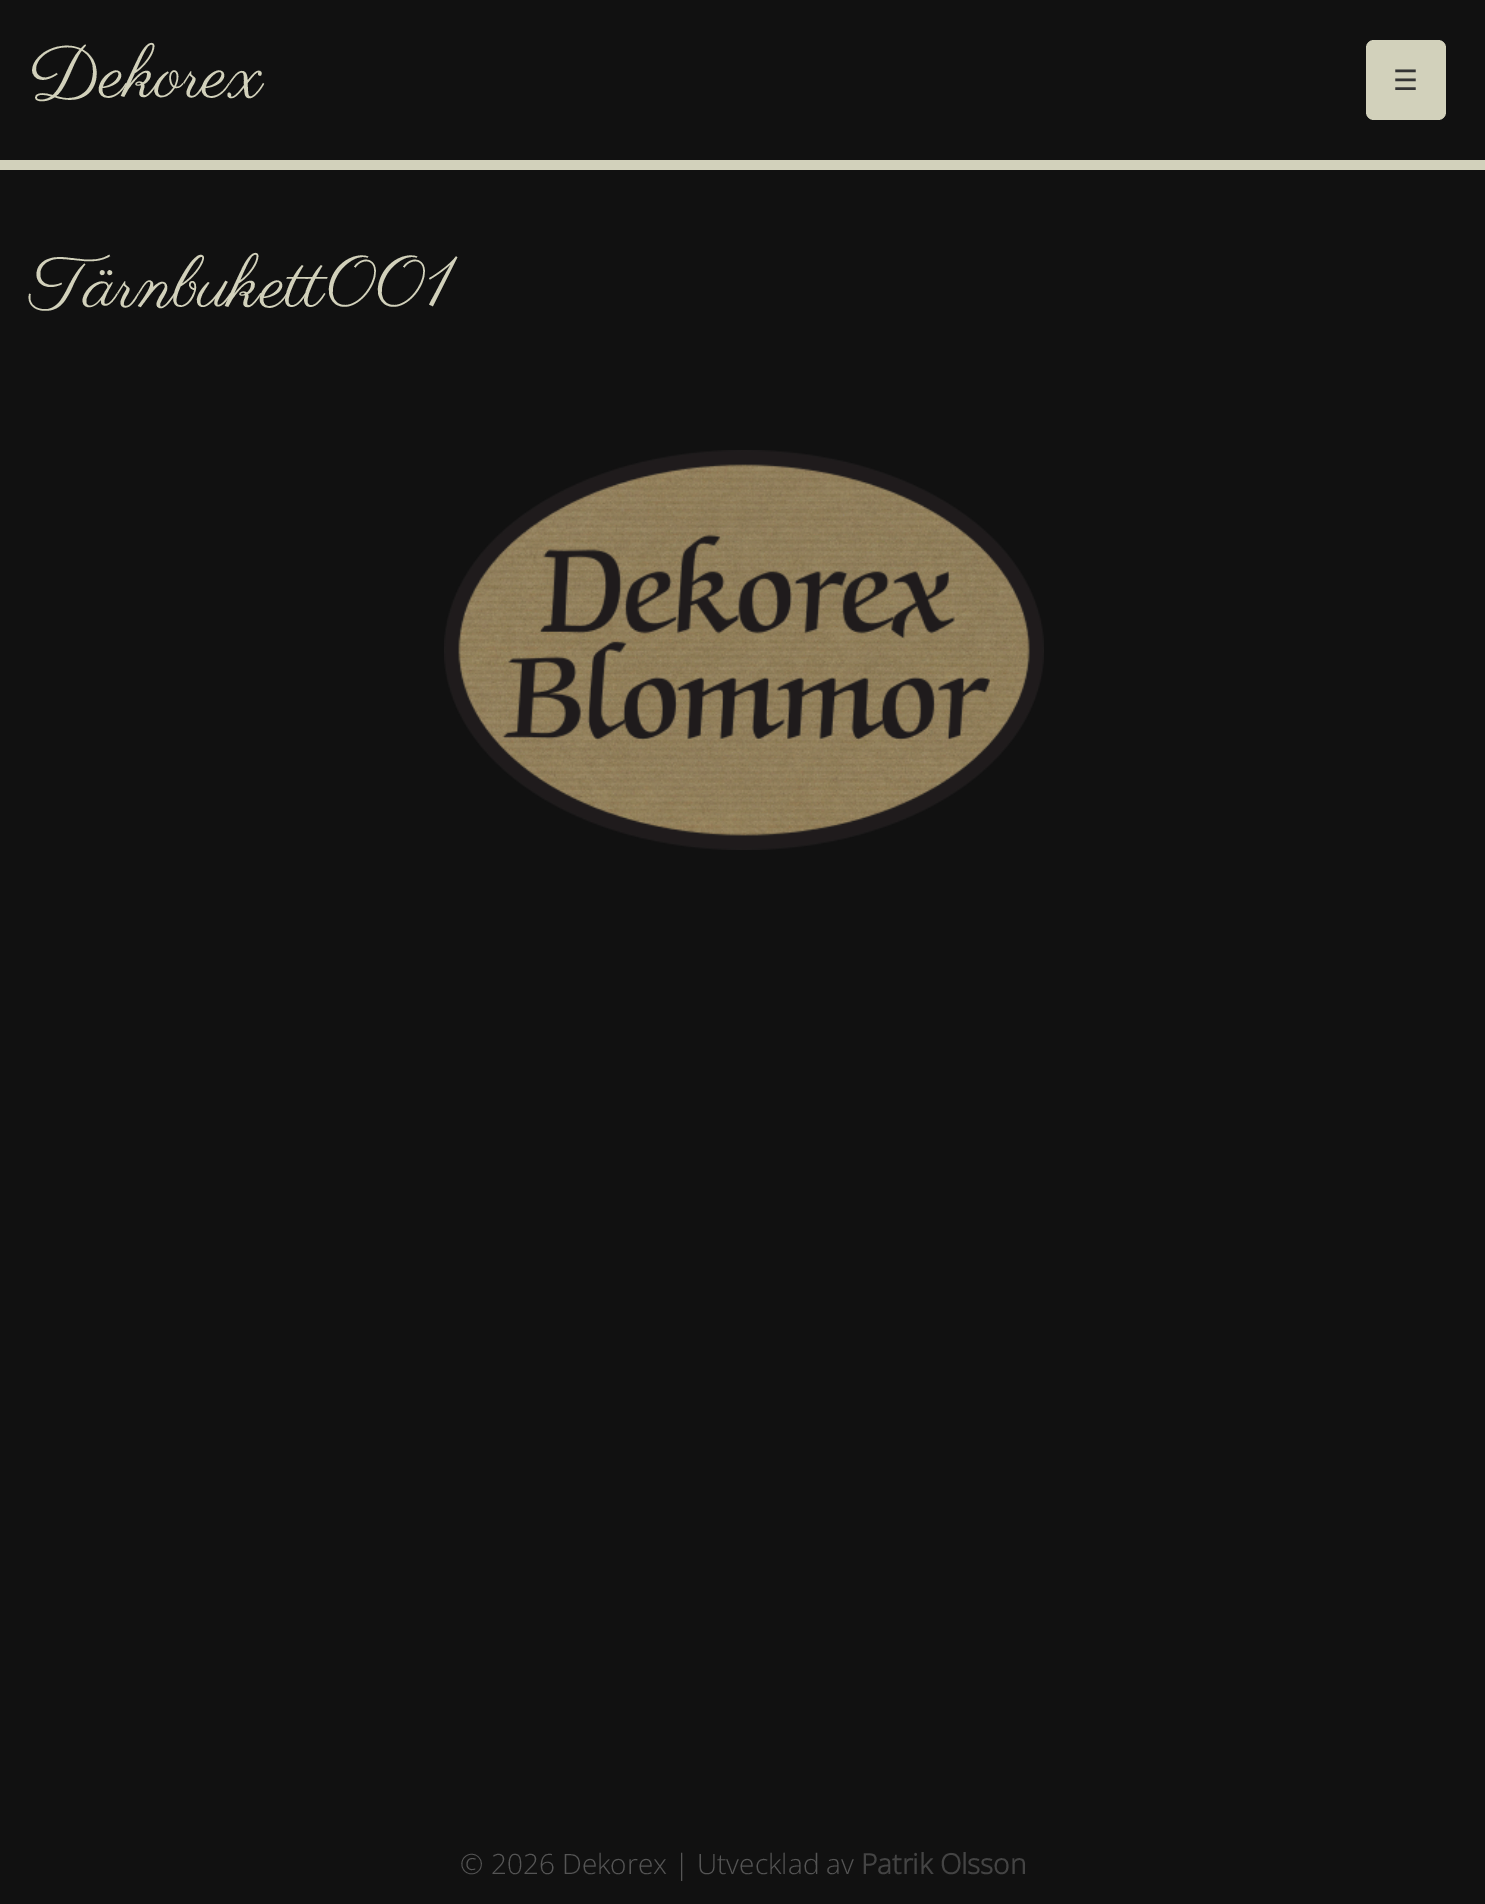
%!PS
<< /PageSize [1485 1904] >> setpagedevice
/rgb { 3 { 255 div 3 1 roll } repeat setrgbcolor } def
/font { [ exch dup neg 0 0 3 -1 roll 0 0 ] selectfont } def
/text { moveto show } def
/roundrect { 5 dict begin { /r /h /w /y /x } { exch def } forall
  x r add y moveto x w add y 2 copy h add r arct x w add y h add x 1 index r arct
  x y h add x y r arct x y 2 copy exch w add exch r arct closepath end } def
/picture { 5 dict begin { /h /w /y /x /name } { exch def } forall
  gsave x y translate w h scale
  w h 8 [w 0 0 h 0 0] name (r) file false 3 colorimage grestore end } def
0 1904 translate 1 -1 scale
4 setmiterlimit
17 17 17 rgb
0 0 1485 1904 rectfill
210 209 187 rgb
0 160 1485 10 rectfill
1366 40 80 80 8 roundrect fill
(img_01.rgb) 444 450 600 400 picture
/Parisienne-Regular 72 font
(Dekorex) 30 96 text
/DejaVuSans-Regular 28 font
51 51 51 rgb
(☰) 1393 90 text
/Parisienne-Regular 72 font
210 209 187 rgb
(Tärnbukett001) 30 306 text
/OpenSans-Light 28 font
85 85 85 rgb
(© 2026 Dekorex | Utvecklad av) 460 1874 text
/OpenSans-Bold 28 font
68 68 68 rgb
(Patrik Olsson) 861 1874 text
showpage
